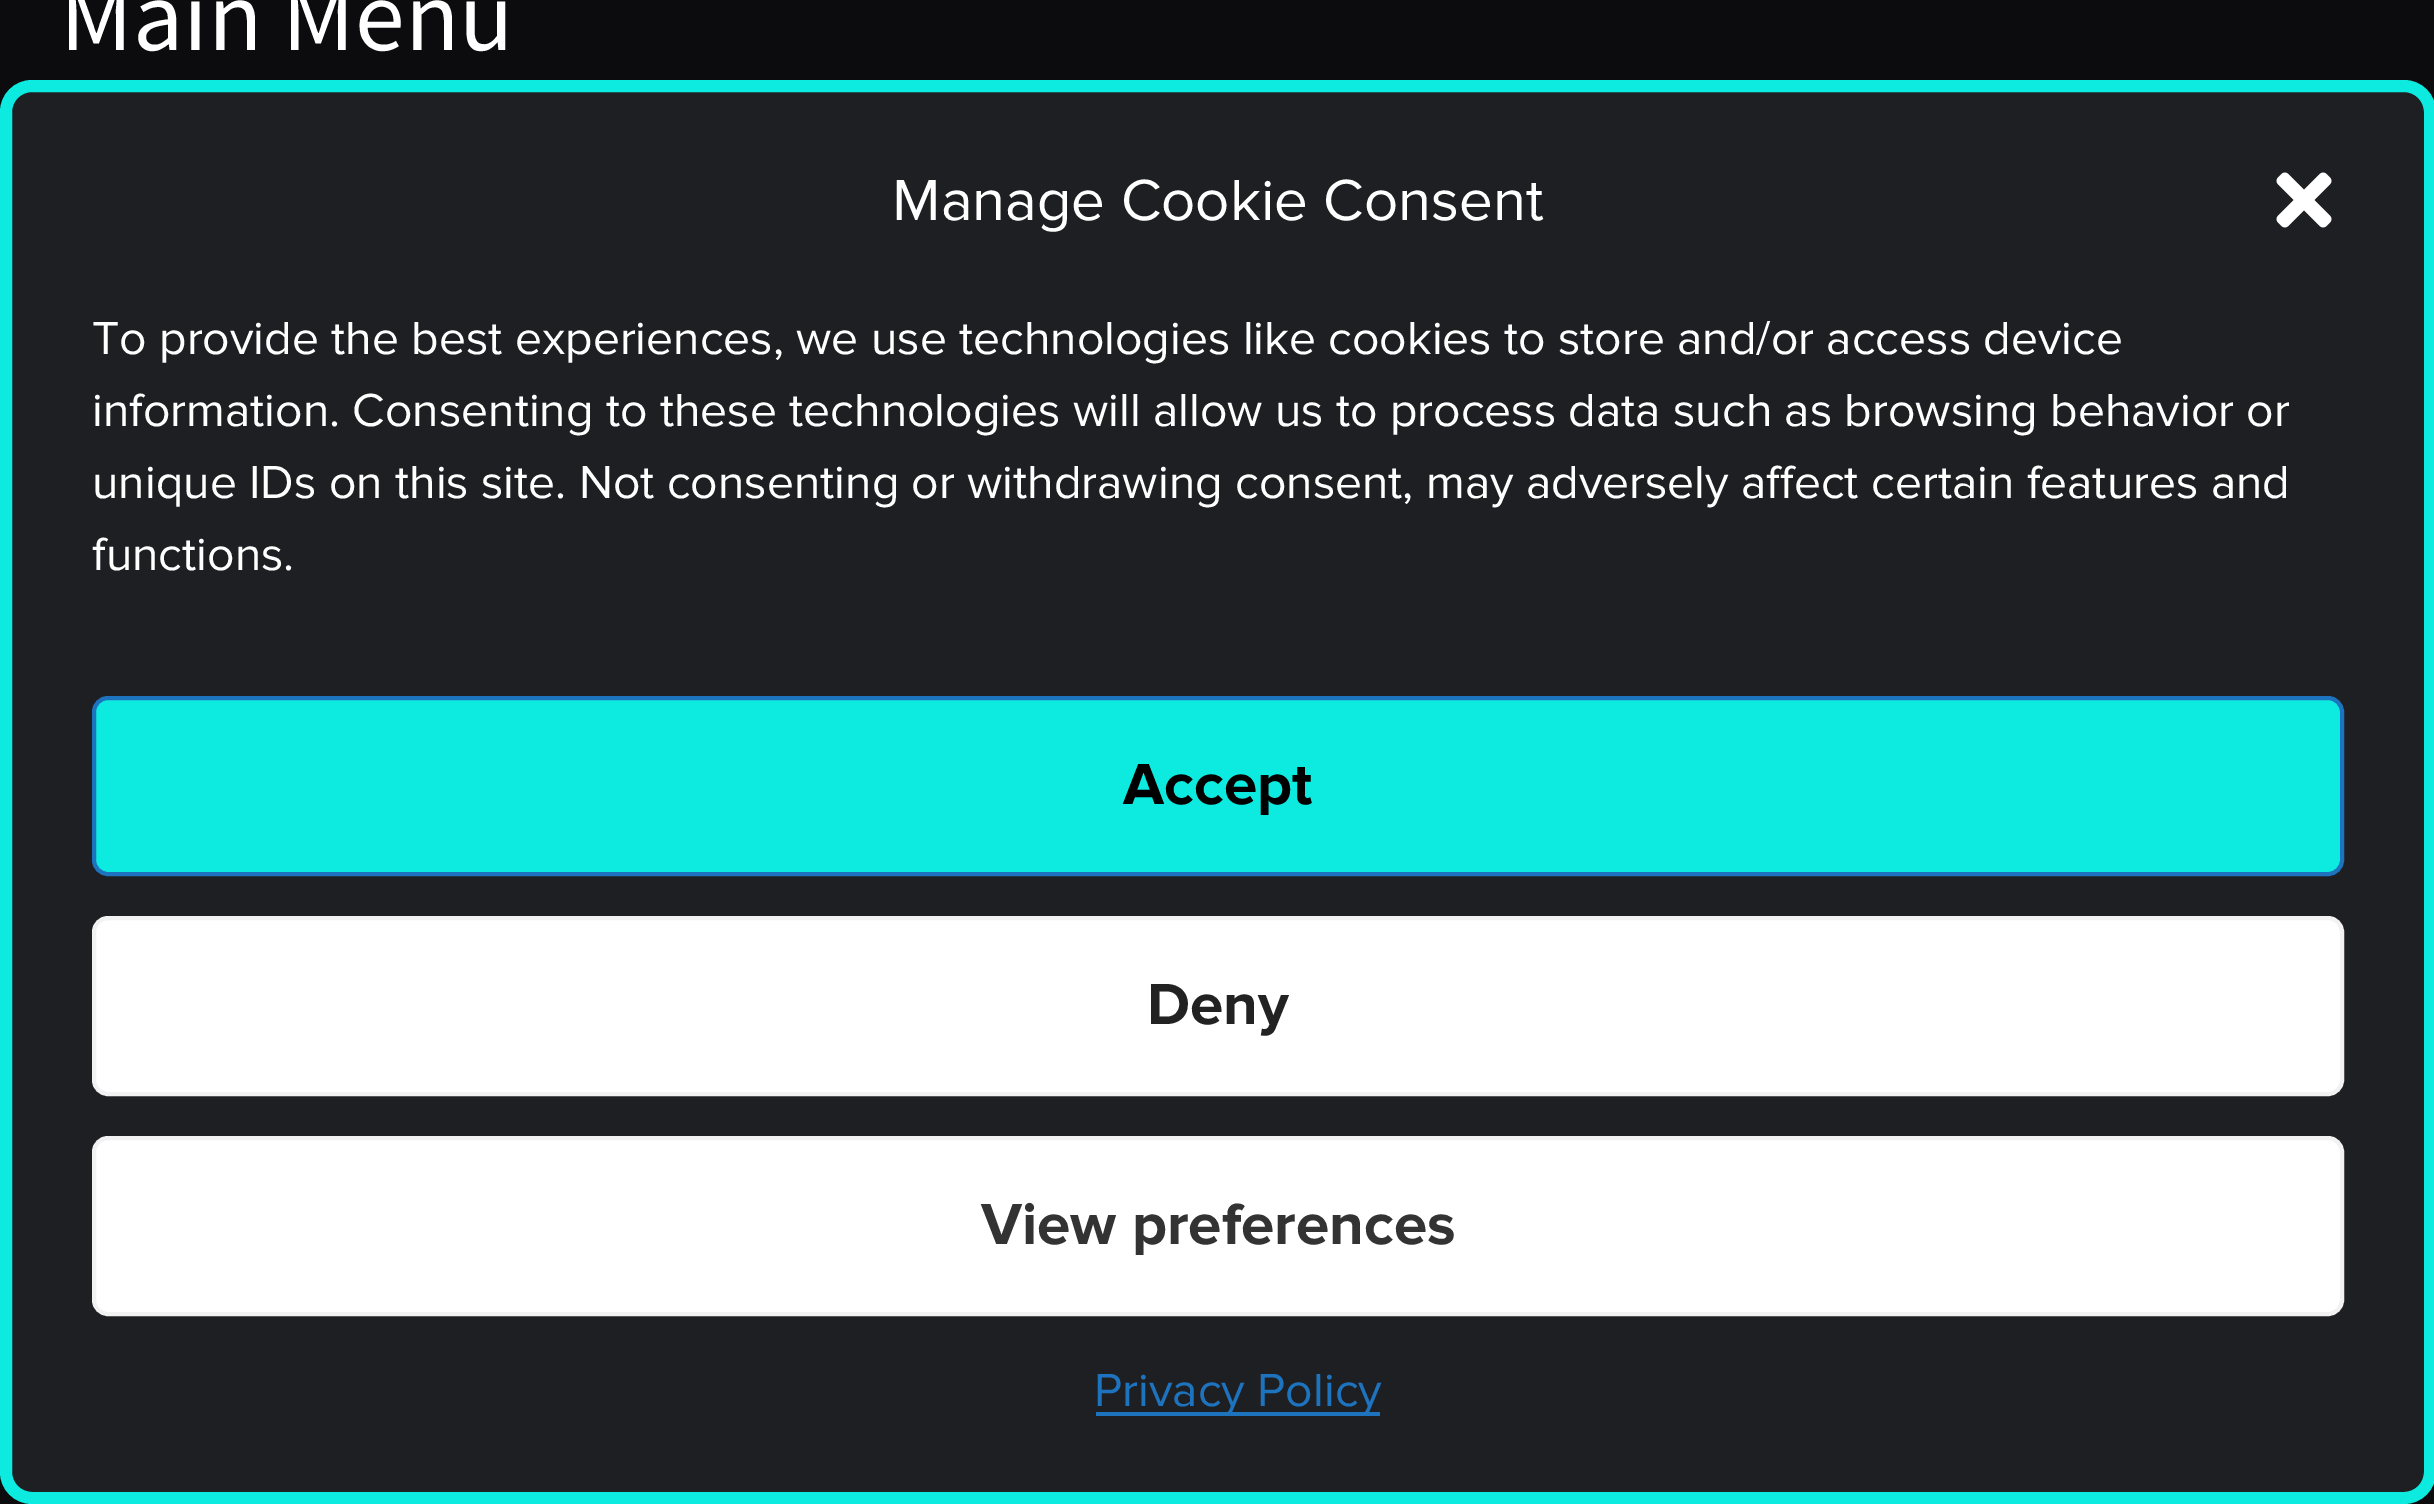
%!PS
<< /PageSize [2434 1504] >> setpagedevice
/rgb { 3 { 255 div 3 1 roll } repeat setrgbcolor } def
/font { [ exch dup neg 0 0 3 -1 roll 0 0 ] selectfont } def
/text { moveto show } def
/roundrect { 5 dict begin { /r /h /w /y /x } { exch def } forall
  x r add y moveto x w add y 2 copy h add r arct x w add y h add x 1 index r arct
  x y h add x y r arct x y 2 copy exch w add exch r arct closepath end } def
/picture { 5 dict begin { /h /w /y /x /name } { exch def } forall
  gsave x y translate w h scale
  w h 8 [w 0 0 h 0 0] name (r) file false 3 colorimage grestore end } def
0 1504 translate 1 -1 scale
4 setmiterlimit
12 12 14 rgb
0 0 2434 1504 rectfill
30 31 34 rgb
6 86 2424 1412 26 roundrect gsave fill grestore
13 235 225 rgb
12 setlinewidth
stroke
(img_01.rgb) 2276 172 56 56 picture
94 698 2248 176 14 roundrect gsave fill grestore
30 115 190 rgb
4 setlinewidth
stroke
255 255 255 rgb
94 918 2248 176 14 roundrect gsave fill grestore
242 242 242 rgb
stroke
255 255 255 rgb
94 1138 2248 176 14 roundrect gsave fill grestore
242 242 242 rgb
stroke
30 115 190 rgb
1096 1412 284 4 rectfill
/SourceSansPro-Regular 100 font
255 255 255 rgb
(Main Menu) 60 50 text
/ProximaNova-Regular 60 font
(Manage Cookie Consent) 892 220 text
/ProximaNova-Regular 48 font
(To provide the best experiences, we use technologies like cookies to store and/or access device) 92 354 text
(information. Consenting to these technologies will allow us to process data such as browsing behavior or) 92 426 text
(unique IDs on this site. Not consenting or withdrawing consent, may adversely affect certain features and) 92 498 text
(functions.) 92 570 text
/ProximaNova-Bold 60 font
0 0 0 rgb
(Accept) 1123 804 text
34 34 34 rgb
(Deny) 1147 1024 text
51 51 51 rgb
(View preferences) 981 1244 text
/ProximaNova-Regular 48 font
30 115 190 rgb
(Privacy Policy) 1094 1406 text
showpage
